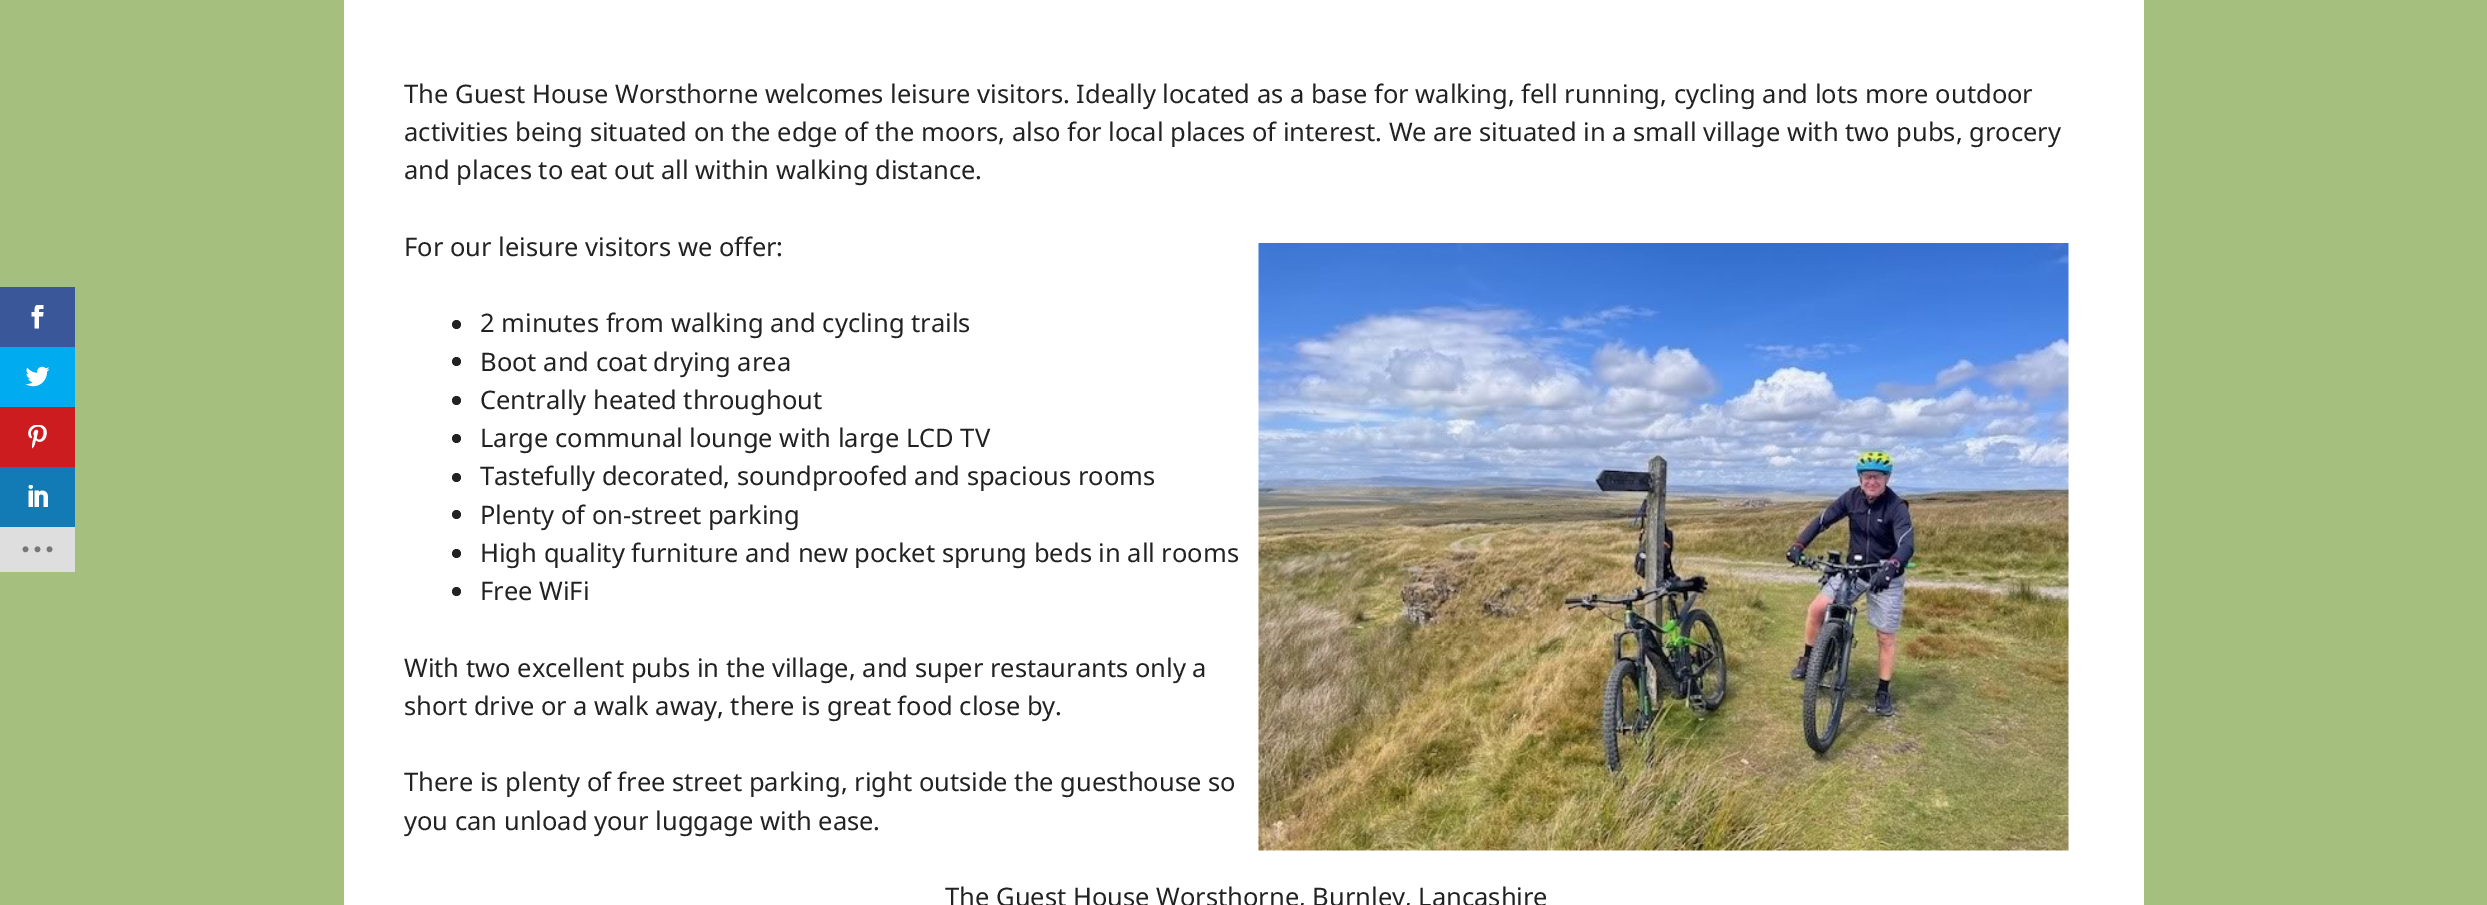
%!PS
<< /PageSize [2487 905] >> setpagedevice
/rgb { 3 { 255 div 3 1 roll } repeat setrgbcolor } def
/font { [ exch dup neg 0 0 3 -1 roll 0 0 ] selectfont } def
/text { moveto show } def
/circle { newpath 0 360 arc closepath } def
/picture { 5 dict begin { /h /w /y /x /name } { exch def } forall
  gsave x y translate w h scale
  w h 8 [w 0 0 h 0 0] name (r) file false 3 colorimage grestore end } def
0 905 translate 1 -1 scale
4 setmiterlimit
165 191 126 rgb
0 0 2487 905 rectfill
58 87 154 rgb
0 287 75 60 rectfill
(img_01.rgb) 31 305 13 24 picture
0 171 240 rgb
0 347 75 60 rectfill
(img_02.rgb) 25 366 25 21 picture
205 28 31 rgb
0 407 75 60 rectfill
(img_03.rgb) 28 425 19 24 picture
18 123 182 rgb
0 467 75 60 rectfill
(img_04.rgb) 28 485 20 22 picture
222 222 222 rgb
0 527 75 45 rectfill
(img_05.rgb) 22 546 31 7 picture
255 255 255 rgb
344 0 1800 905 rectfill
34 34 34 rgb
456.5 324.5 4.5 circle fill
456.5 361.5 4.5 circle fill
456.5 400.5 4.5 circle fill
456.5 438.5 4.5 circle fill
456.5 477.5 4.5 circle fill
456.5 514.5 4.5 circle fill
456.5 553.5 4.5 circle fill
456.5 591.5 4.5 circle fill
(img_06.rgb) 1258 243 811 608 picture
/NotoSans-Regular 25.5 font
(The Guest House Worsthorne welcomes leisure visitors. Ideally located as a base for walking, fell running, cycling and lots more outdoor) 404 103 text
(activities being situated on the edge of the moors, also for local places of interest. We are situated in a small village with two pubs, grocery) 404 141 text
(and places to eat out all within walking distance.) 404 179 text
(For our leisure visitors we offer:) 404 256 text
(2 minutes from walking and cycling trails) 480 332 text
(Boot and coat drying area) 480 371 text
(Centrally heated throughout) 480 409 text
(Large communal lounge with large LCD TV) 480 447 text
(Tastefully decorated, soundproofed and spacious rooms) 480 485 text
(Plenty of on-street parking) 480 524 text
(High quality furniture and new pocket sprung beds in all rooms) 480 562 text
(Free WiFi) 480 600 text
(With two excellent pubs in the village, and super restaurants only a) 404 677 text
(short drive or a walk away, there is great food close by.) 404 715 text
(There is plenty of free street parking, right outside the guesthouse so) 404 791 text
(you can unload your luggage with ease.) 404 830 text
(The Guest House Worsthorne, Burnley, Lancashire) 945 906 text
showpage
